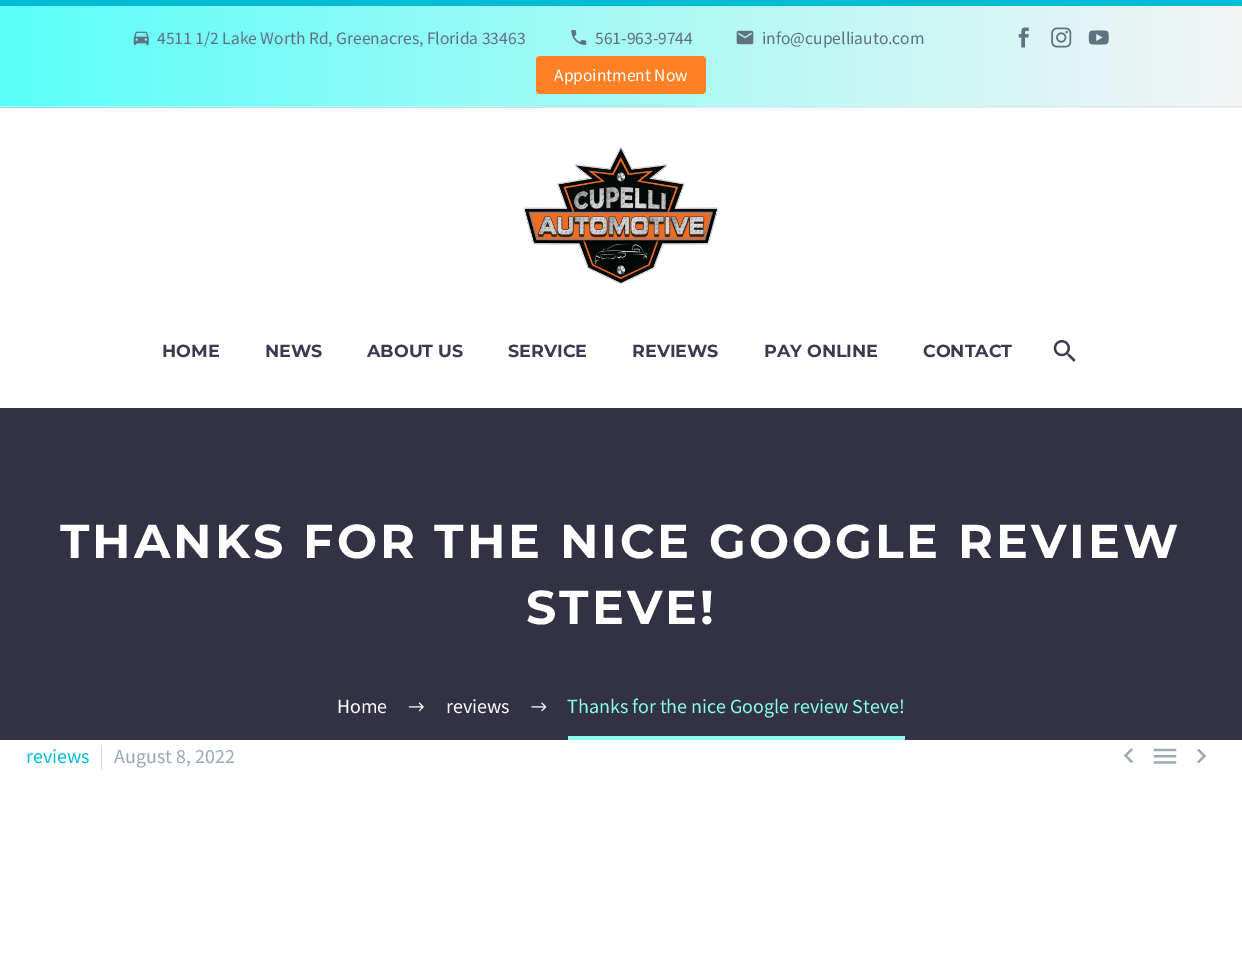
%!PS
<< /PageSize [1242 978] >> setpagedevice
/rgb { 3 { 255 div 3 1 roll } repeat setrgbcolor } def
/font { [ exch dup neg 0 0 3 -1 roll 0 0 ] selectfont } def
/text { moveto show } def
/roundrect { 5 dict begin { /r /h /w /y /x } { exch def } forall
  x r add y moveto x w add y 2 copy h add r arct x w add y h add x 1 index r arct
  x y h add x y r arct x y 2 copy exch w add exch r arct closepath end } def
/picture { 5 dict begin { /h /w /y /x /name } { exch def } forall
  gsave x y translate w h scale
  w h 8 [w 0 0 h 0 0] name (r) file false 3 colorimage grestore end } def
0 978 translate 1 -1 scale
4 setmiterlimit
255 255 255 rgb
0 0 1242 978 rectfill
gsave 0 6 moveto 1242 0 rlineto 0 102 rlineto -1242 0 rlineto closepath clip newpath
<< /ShadingType 2 /ColorSpace /DeviceRGB /Coords [0 54 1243 54] /Extend [true true] /Function << /FunctionType 2 /Domain [0 1] /C0 [0.357 1 0.976] /C1 [0.957 0.957 0.957] /N 1 >> >> shfill grestore
0 188 212 rgb
0 0 1242 6 rectfill
223 229 232 rgb
0 106 1242 1 rectfill
(img_01.rgb) 133 31 16 14 picture
(img_02.rgb) 571 30 16 15 picture
(img_03.rgb) 736 30 18 15 picture
(img_04.rgb) 1018 27 11 21 picture
(img_05.rgb) 1051 27 21 21 picture
(img_06.rgb) 1088 30 21 15 picture
255 128 37 rgb
536 56 170 38 4 roundrect fill
(img_07.rgb) 523 147 196 137 picture
(img_08.rgb) 1053 340 23 22 picture
51 49 68 rgb
0 408 1242 332 rectfill
(img_09.rgb) 408 702 16 10 picture
(img_10.rgb) 531 702 16 10 picture
137 255 241 rgb
568 736 337 4 rectfill
212 222 225 rgb
101 745 1 25 rectfill
(img_11.rgb) 1123 748 10 15 picture
(img_12.rgb) 1153 748 24 16 picture
(img_13.rgb) 1197 748 10 16 picture
/SourceSansPro-Regular 17.5 font
95 114 127 rgb
(4511 1/2 Lake Worth Rd, Greenacres, Florida 33463) 157 44 text
(561-963-9744) 595 44 text
(info@cupelliauto.com) 762 44 text
255 255 255 rgb
(Appointment Now) 554 81 text
/Montserrat-Bold 17.5 font
60 57 80 rgb
(HOME) 162 357 text
(NEWS) 265 357 text
(ABOUT US) 367 357 text
(SERVICE) 508 357 text
(REVIEWS) 632 357 text
(PAY ONLINE) 764 357 text
(CONTACT) 923 357 text
/Montserrat-Bold 47.5 font
255 255 255 rgb
60 558 moveto 3.1 0 (THANKS FOR THE NICE GOOGLE REVIEW) ashow
526 624 moveto 3.1 0 (STEVE!) ashow
/SourceSansPro-Regular 20 font
(Home) 337 713 text
(reviews) 446 713 text
137 255 241 rgb
(Thanks for the nice Google review Steve!) 567 713 text
0 188 212 rgb
(reviews) 26 763 text
153 169 181 rgb
(August 8, 2022) 114 763 text
showpage
